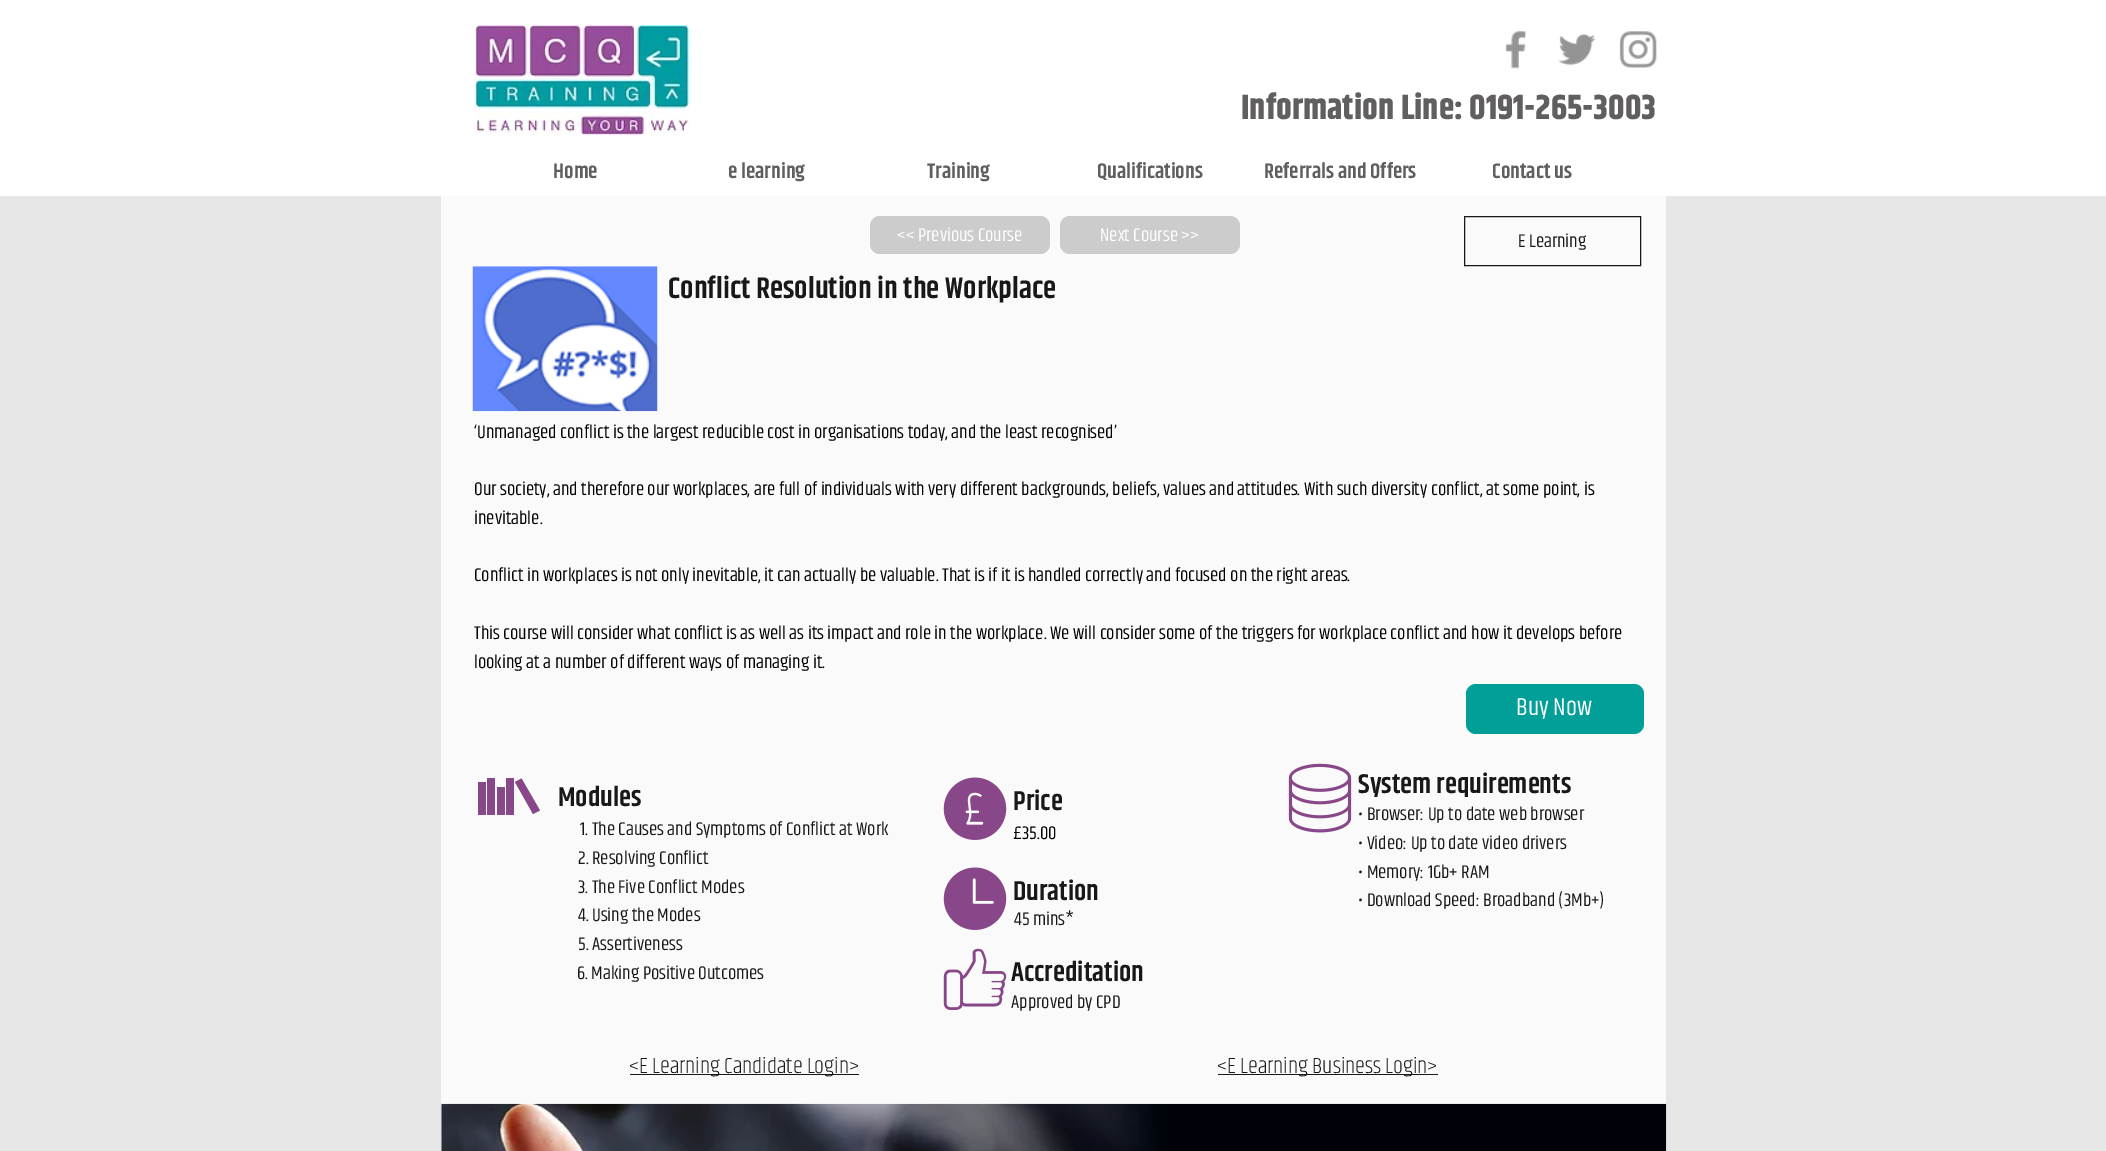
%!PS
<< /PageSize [2106 1151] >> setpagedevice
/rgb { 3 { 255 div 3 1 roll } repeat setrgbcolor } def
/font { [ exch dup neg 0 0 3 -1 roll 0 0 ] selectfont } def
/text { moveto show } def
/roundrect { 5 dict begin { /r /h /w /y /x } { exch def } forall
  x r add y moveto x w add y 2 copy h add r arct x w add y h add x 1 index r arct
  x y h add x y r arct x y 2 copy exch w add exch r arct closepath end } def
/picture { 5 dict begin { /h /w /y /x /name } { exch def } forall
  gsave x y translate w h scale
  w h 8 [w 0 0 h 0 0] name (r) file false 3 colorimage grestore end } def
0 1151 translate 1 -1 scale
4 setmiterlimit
230 230 230 rgb
0 0 2106 1151 rectfill
255 255 255 rgb
0 0 2106 196 rectfill
(img_01.rgb) 474 25 216 110 picture
(img_02.rgb) 1505 31 22 38 picture
(img_03.rgb) 1558 33 38 33 picture
(img_04.rgb) 1619 31 38 37 picture
250 250 250 rgb
441 196 1225 544 rectfill
204 204 204 rgb
870 216 180 38 10 roundrect fill
1060 216 180 38 10 roundrect fill
24 24 24 rgb
1464.5 216.5 176 49 rectstroke
(img_05.rgb) 472 266 186 146 picture
2 159 152 rgb
1466 684 178 50 10 roundrect fill
250 250 250 rgb
441 740 1225 364 rectfill
136 71 137 rgb
478 782 8 33 rectfill
487 778 8 37 rectfill
497 787 8 28 rectfill
506 778 8 37 rectfill
540 810.5 moveto -7 3.5 rlineto -18 -32 rlineto 6.5 -3.5 rlineto closepath fill
(img_06.rgb) 943 777 64 63 picture
(img_07.rgb) 943 867 64 63 picture
(img_08.rgb) 943 948 64 62 picture
(img_09.rgb) 1288 763 64 70 picture
24 24 24 rgb
630 1074 229 1 rectfill
1218 1074 220 1 rectfill
255 255 255 rgb
441 1104 1 47 rectfill
(img_10.rgb) 441 1103 1226 48 picture
/Khand-Bold 35 font
96 94 94 rgb
(Information Line: 0191-265-3003) 1241 119 text
/Khand-SemiBold 21.25 font
(Home) 553 178 text
(e learning) 728 178 text
(Training) 927 178 text
(Qualifications) 1097 178 text
(Referrals and Offers) 1264 178 text
(Contact us) 1492 178 text
/Khand-Regular 18.75 font
255 255 255 rgb
(<< Previous Course) 897 241 text
(Next Course >>) 1100 241 text
24 24 24 rgb
(E Learning) 1518 247 text
/Khand-SemiBold 30 font
(Conflict Resolution in the Workplace) 668 298 text
/Khand-Regular 18.75 font
0 0 0 rgb
(‘Unmanaged conflict is the largest reducible cost in organisations today, and the least recognised’) 474 438 text
(Our society, and therefore our workplaces, are full of individuals with very different backgrounds, beliefs, values and attitudes. With such diversity conflict, at some point, is) 474 495 text
(inevitable.) 474 524 text
(Conflict in workplaces is not only inevitable, it can actually be valuable. That is if it is handled correctly and focused on the right areas.) 474 581 text
(This course will consider what conflict is as well as its impact and role in the workplace. We will consider some of the triggers for workplace conflict and how it develops before) 474 639 text
(looking at a number of different ways of managing it.) 474 668 text
/Khand-Regular 25 font
255 255 255 rgb
(Buy Now) 1516 715 text
/Khand-SemiBold 27.5 font
24 24 24 rgb
(Modules) 558 806 text
/Khand-Regular 18.75 font
(1. The Causes and Symptoms of Conflict at Work) 580 835 text
(2. Resolving Conflict) 578 864 text
(3. The Five Conflict Modes) 578 893 text
(4. Using the Modes) 578 921 text
(5. Assertiveness) 578 950 text
(6. Making Positive Outcomes) 577 979 text
/Khand-SemiBold 27.5 font
(Price) 1013 810 text
/Khand-Regular 18.75 font
0 0 0 rgb
(£35.00) 1013 839 text
/Khand-SemiBold 27.5 font
24 24 24 rgb
(Duration) 1013 900 text
/Khand-Regular 18.75 font
(45 mins*) 1014 925 text
/Khand-SemiBold 27.5 font
(Accreditation) 1011 981 text
/Khand-Regular 18.75 font
(Approved by CPD) 1011 1008 text
/Khand-SemiBold 27.5 font
(System requirements) 1358 793 text
/Khand-Regular 18.75 font
(• Browser: Up to date web browser) 1358 820 text
(• Video: Up to date video drivers) 1358 849 text
(• Memory: 1Gb+ RAM) 1358 878 text
(• Download Speed: Broadband \(3Mb+\)) 1358 906 text
/Khand-Light 22.5 font
(<E Learning Candidate Login>) 629 1073 text
(<E Learning Business Login>) 1217 1073 text
showpage
